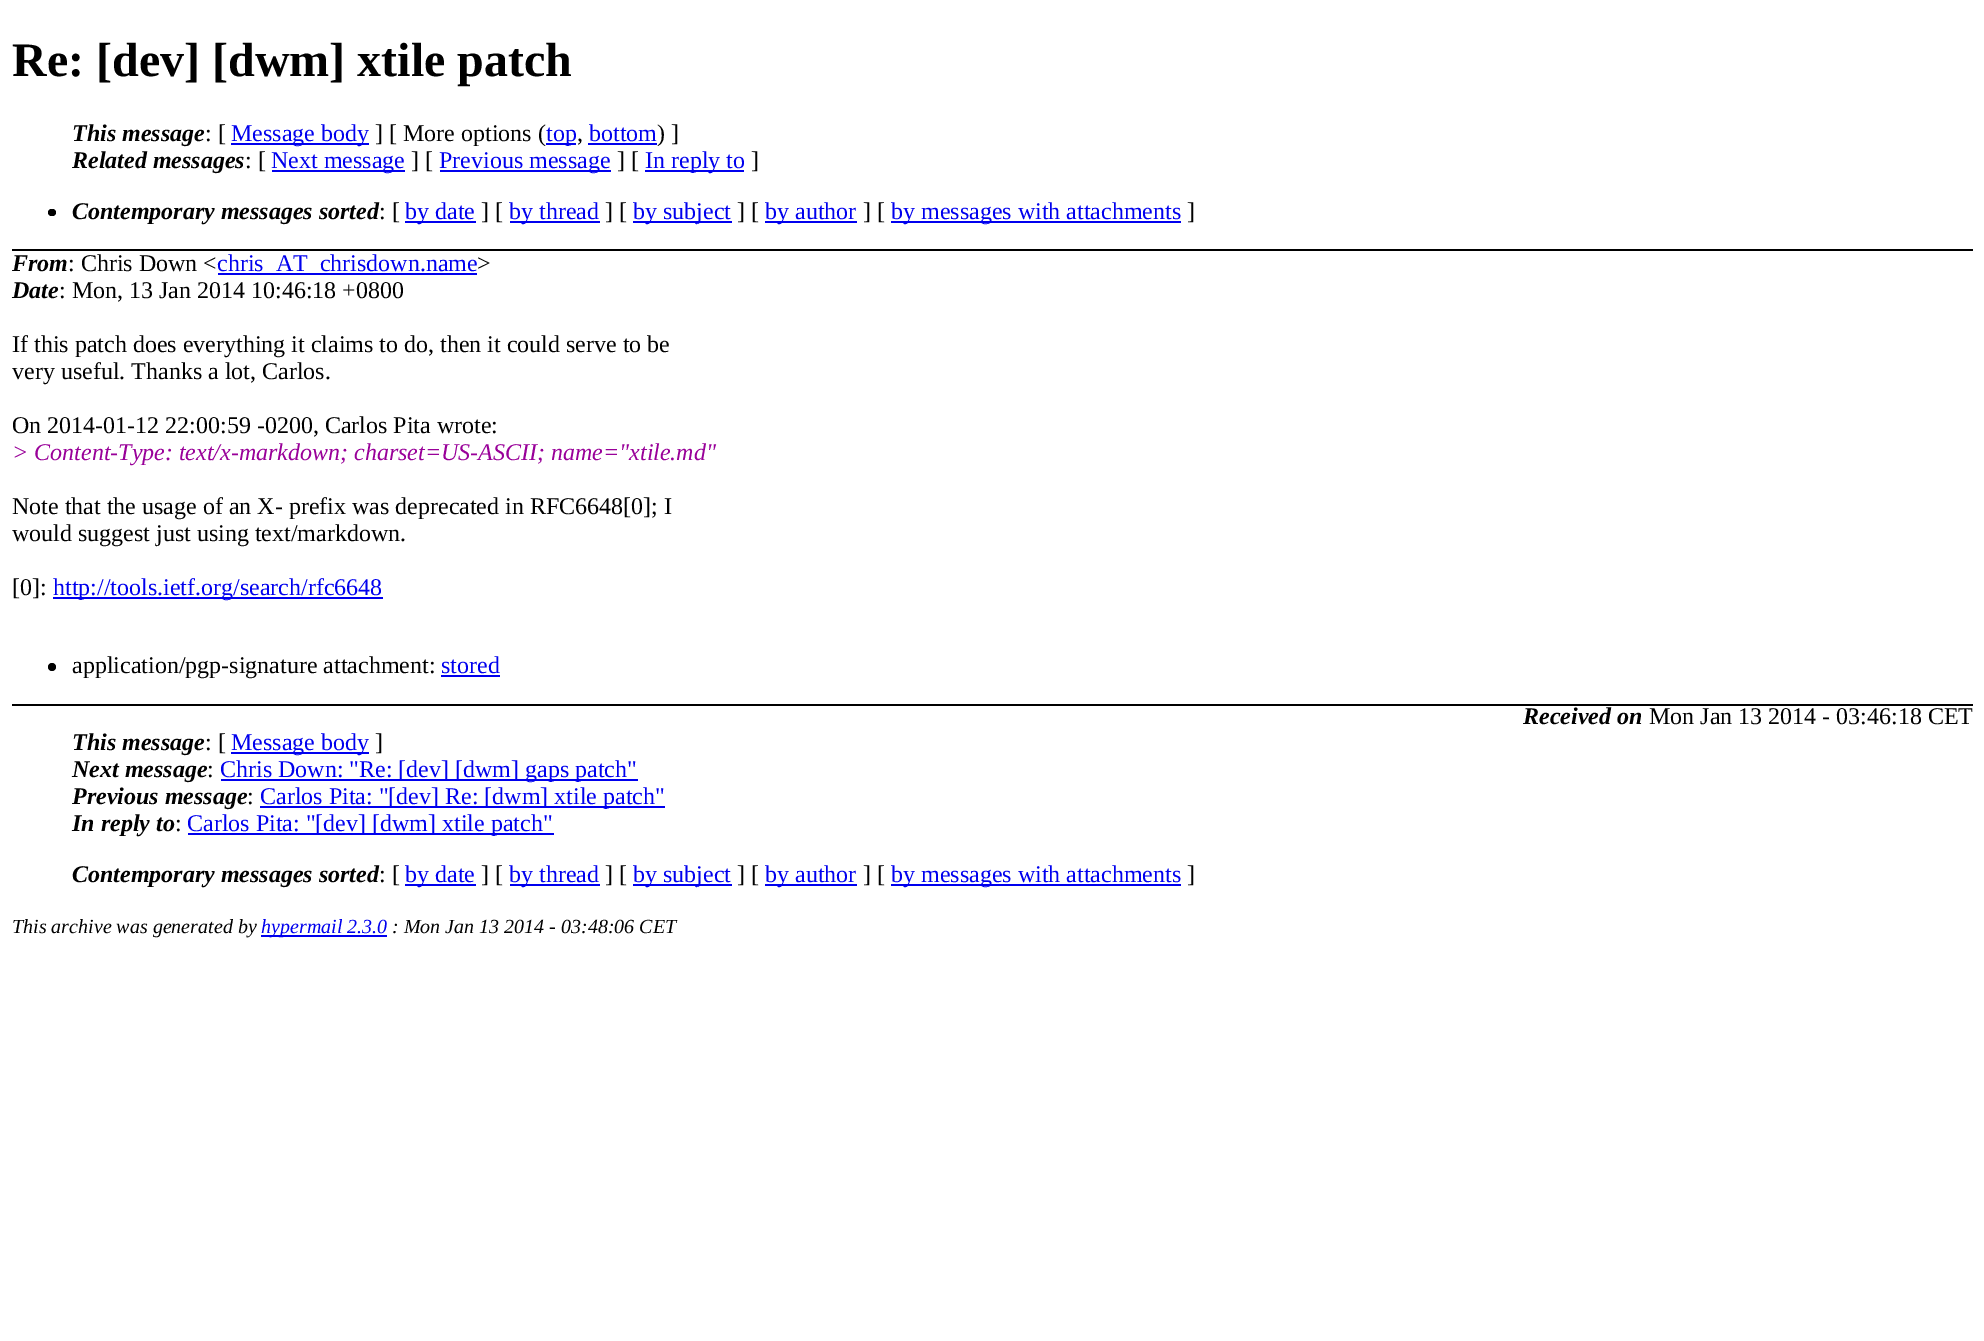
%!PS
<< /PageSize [1984 1341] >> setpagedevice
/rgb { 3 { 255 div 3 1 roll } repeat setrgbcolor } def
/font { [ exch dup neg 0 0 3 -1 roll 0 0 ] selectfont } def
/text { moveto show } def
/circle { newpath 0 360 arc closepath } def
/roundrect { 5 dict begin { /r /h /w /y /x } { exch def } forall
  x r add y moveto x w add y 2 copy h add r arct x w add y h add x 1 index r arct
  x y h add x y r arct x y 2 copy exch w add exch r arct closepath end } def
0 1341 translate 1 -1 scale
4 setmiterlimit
255 255 255 rgb
0 0 1984 1341 rectfill
0 0 0 rgb
12 249 1961 2 rectfill
0 0 238 rgb
231 143 138 2 rectfill
546 143 30 2 rectfill
588 143 69 2 rectfill
272 170 133 2 rectfill
440 170 171 2 rectfill
645 170 99 2 rectfill
0 0 0 rgb
48 209 8 7 3.5 roundrect fill
0 0 238 rgb
405 221 71 2 rectfill
510 221 90 2 rectfill
633 221 99 2 rectfill
765 221 92 2 rectfill
891 221 290 2 rectfill
218 273 259 2 rectfill
53 597 330 2 rectfill
0 0 0 rgb
52 667 4 circle fill
0 0 238 rgb
441 675 59 2 rectfill
0 0 0 rgb
12 704 1961 2 rectfill
0 0 238 rgb
231 752 138 2 rectfill
221 779 417 2 rectfill
260 806 405 2 rectfill
188 833 366 2 rectfill
405 884 71 2 rectfill
510 884 90 2 rectfill
633 884 99 2 rectfill
765 884 92 2 rectfill
891 884 290 2 rectfill
261 935 126 2 rectfill
/LiberationSerif-Bold 48 font
0 0 0 rgb
(Re: [dev] [dwm] xtile patch) 12 76 text
/LiberationSerif-BoldItalic 24 font
(This message) 72 141 text
/LiberationSerif-Regular 24 font
(: [) 205 141 text
0 0 238 rgb
(Message body) 231 141 text
0 0 0 rgb
(] [ More options \() 375 141 text
0 0 238 rgb
(top) 546 141 text
0 0 0 rgb
(,) 577 141 text
0 0 238 rgb
(bottom) 589 141 text
0 0 0 rgb
(\) ]) 657 141 text
/LiberationSerif-BoldItalic 24 font
(Related messages) 72 168 text
/LiberationSerif-Regular 24 font
(: [) 245 168 text
0 0 238 rgb
(Next message) 271 168 text
0 0 0 rgb
(] [) 411 168 text
0 0 238 rgb
(Previous message) 439 168 text
0 0 0 rgb
(] [) 617 168 text
0 0 238 rgb
(In reply to) 645 168 text
0 0 0 rgb
(]) 751 168 text
/LiberationSerif-BoldItalic 24 font
(Contemporary messages sorted) 72 219 text
/LiberationSerif-Regular 24 font
(: [) 379 219 text
0 0 238 rgb
(by date) 405 219 text
0 0 0 rgb
(] [) 481 219 text
0 0 238 rgb
(by thread) 509 219 text
0 0 0 rgb
(] [) 605 219 text
0 0 238 rgb
(by subject) 633 219 text
0 0 0 rgb
(] [) 737 219 text
0 0 238 rgb
(by author) 765 219 text
0 0 0 rgb
(] [) 863 219 text
0 0 238 rgb
(by messages with attachments) 891 219 text
0 0 0 rgb
(]) 1187 219 text
/LiberationSerif-BoldItalic 24 font
(From) 12 271 text
/LiberationSerif-Regular 24 font
(: Chris Down <) 68 271 text
0 0 238 rgb
(chris_AT_chrisdown.name) 217 271 text
0 0 0 rgb
(>) 477 271 text
/LiberationSerif-BoldItalic 24 font
(Date) 12 298 text
/LiberationSerif-Regular 24 font
(: Mon, 13 Jan 2014 10:46:18 +0800) 59 298 text
(If this patch does everything it claims to do, then it could serve to be) 12 352 text
(very useful. Thanks a lot, Carlos.) 12 379 text
(On 2014-01-12 22:00:59 -0200, Carlos Pita wrote:) 12 433 text
/LiberationSerif-Italic 24 font
153 0 153 rgb
(> Content-Type: text/x-markdown; charset=US-ASCII; name="xtile.md") 12 460 text
/LiberationSerif-Regular 24 font
0 0 0 rgb
(Note that the usage of an X- prefix was deprecated in RFC6648[0]; I) 12 514 text
(would suggest just using text/markdown.) 12 541 text
([0]:) 12 595 text
0 0 238 rgb
(http://tools.ietf.org/search/rfc6648) 53 595 text
0 0 0 rgb
(application/pgp-signature attachment:) 72 673 text
0 0 238 rgb
(stored) 441 673 text
/LiberationSerif-BoldItalic 24 font
0 0 0 rgb
(Received on) 1523 724 text
/LiberationSerif-Regular 24 font
(Mon Jan 13 2014 - 03:46:18 CET) 1649 724 text
/LiberationSerif-BoldItalic 24 font
(This message) 72 750 text
/LiberationSerif-Regular 24 font
(: [) 205 750 text
0 0 238 rgb
(Message body) 231 750 text
0 0 0 rgb
(]) 375 750 text
/LiberationSerif-BoldItalic 24 font
(Next message) 72 777 text
/LiberationSerif-Regular 24 font
(:) 207 777 text
0 0 238 rgb
(Chris Down: "Re: [dev] [dwm] gaps patch") 220 777 text
/LiberationSerif-BoldItalic 24 font
0 0 0 rgb
(Previous message) 72 804 text
/LiberationSerif-Regular 24 font
(:) 247 804 text
0 0 238 rgb
(Carlos Pita: "[dev] Re: [dwm] xtile patch") 260 804 text
/LiberationSerif-BoldItalic 24 font
0 0 0 rgb
(In reply to) 72 831 text
/LiberationSerif-Regular 24 font
(:) 175 831 text
0 0 238 rgb
(Carlos Pita: "[dev] [dwm] xtile patch") 187 831 text
/LiberationSerif-BoldItalic 24 font
0 0 0 rgb
(Contemporary messages sorted) 72 882 text
/LiberationSerif-Regular 24 font
(: [) 379 882 text
0 0 238 rgb
(by date) 405 882 text
0 0 0 rgb
(] [) 481 882 text
0 0 238 rgb
(by thread) 509 882 text
0 0 0 rgb
(] [) 605 882 text
0 0 238 rgb
(by subject) 633 882 text
0 0 0 rgb
(] [) 737 882 text
0 0 238 rgb
(by author) 765 882 text
0 0 0 rgb
(] [) 863 882 text
0 0 238 rgb
(by messages with attachments) 891 882 text
0 0 0 rgb
(]) 1187 882 text
/LiberationSerif-Italic 20 font
(This archive was generated by) 12 933 text
0 0 238 rgb
(hypermail 2.3.0) 261 933 text
0 0 0 rgb
(: Mon Jan 13 2014 - 03:48:06 CET) 392 933 text
showpage
